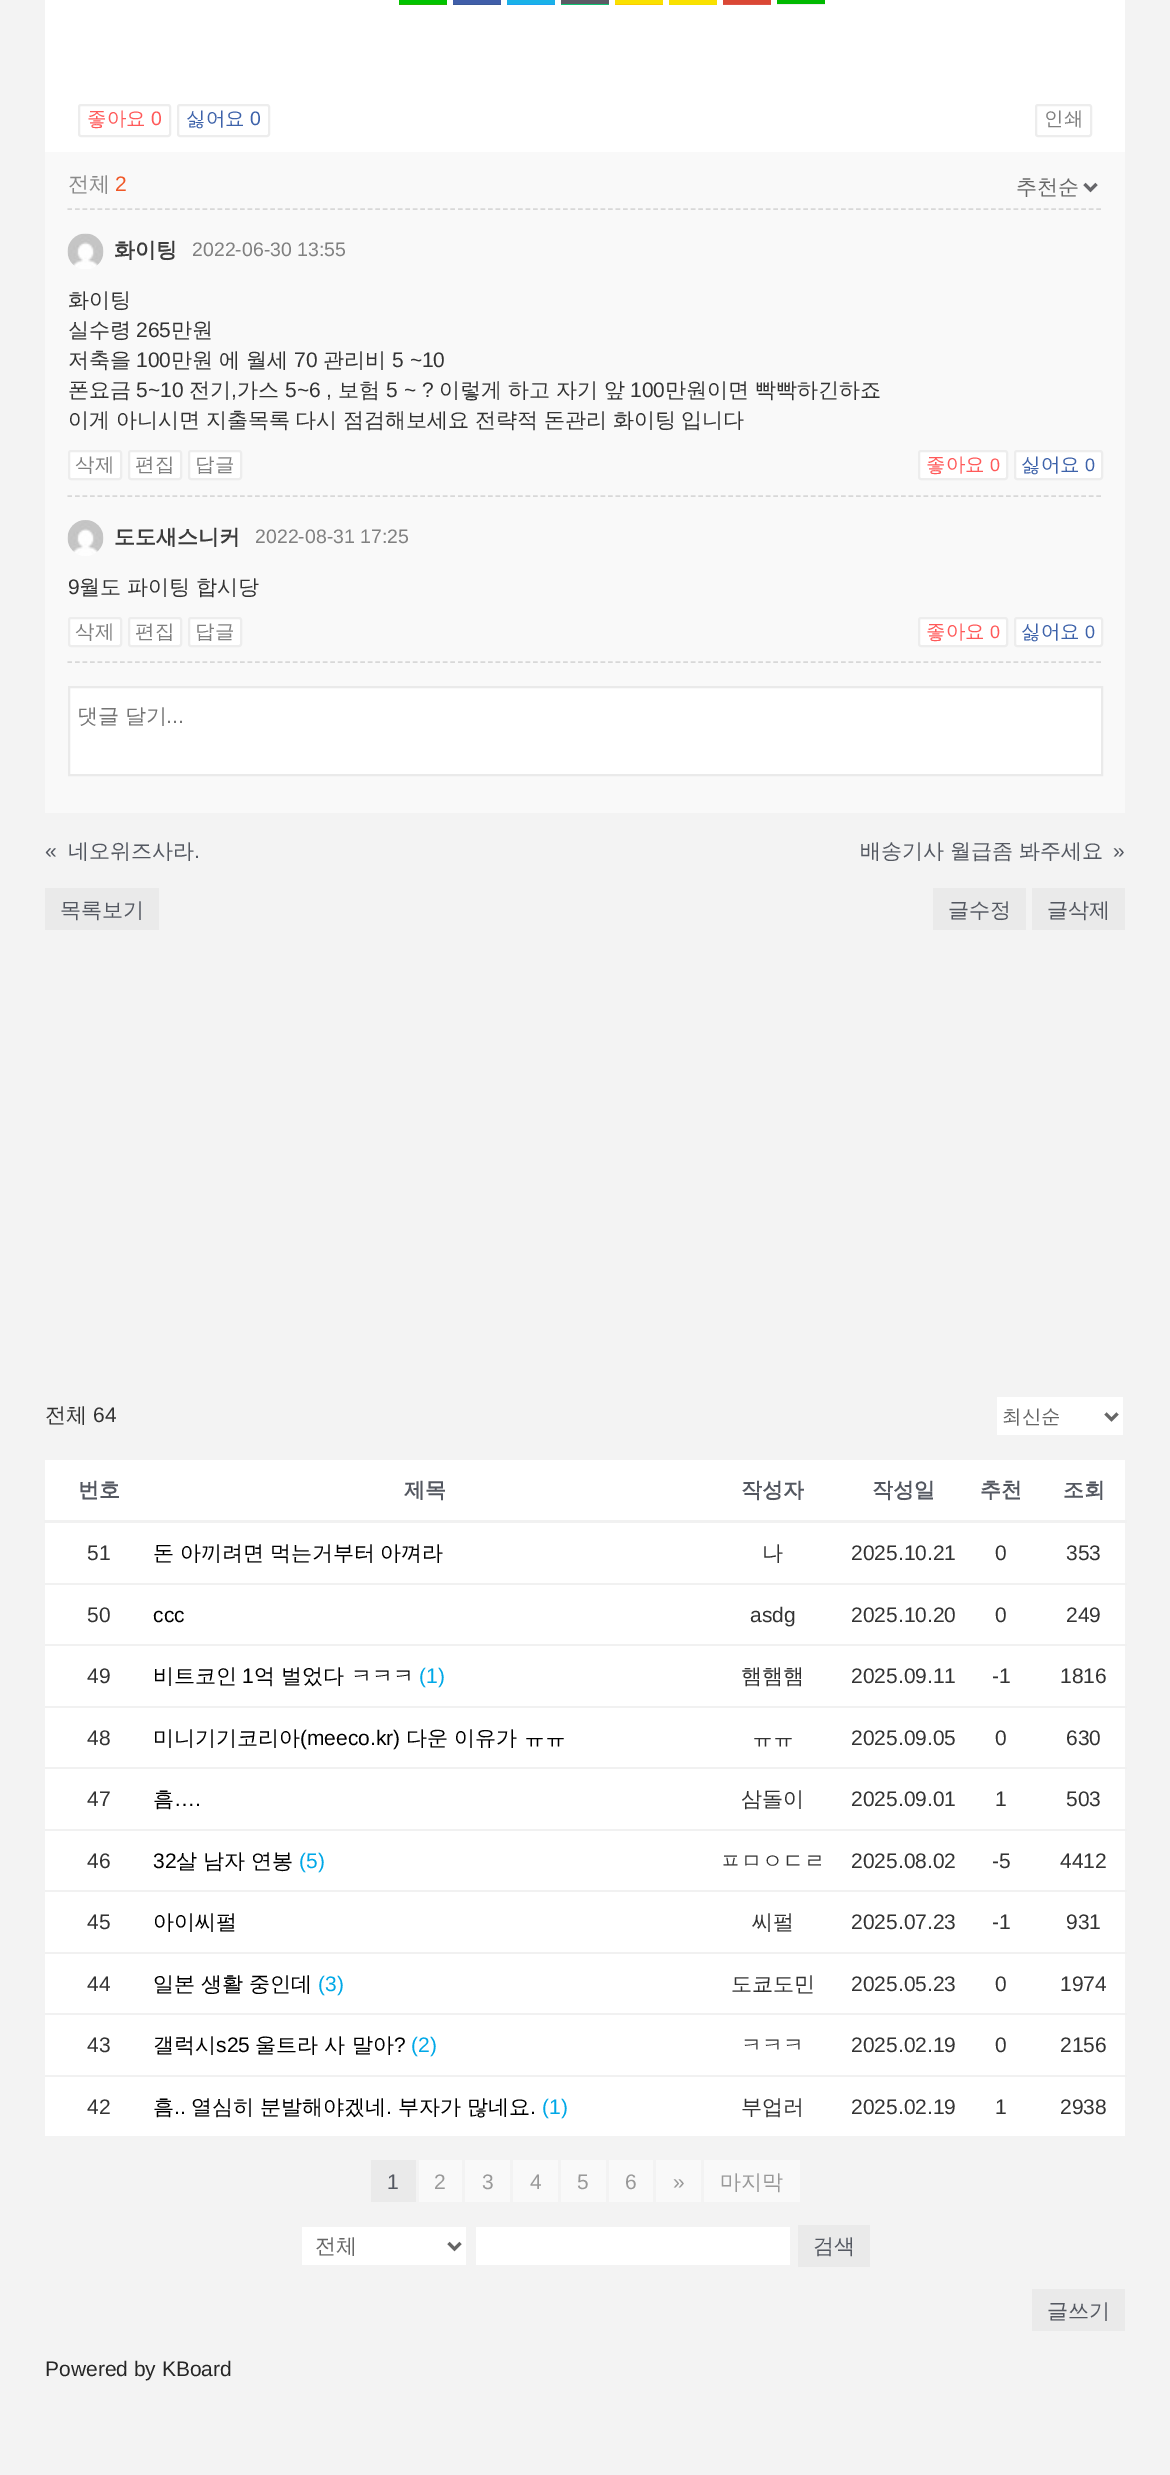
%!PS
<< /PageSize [1170 2475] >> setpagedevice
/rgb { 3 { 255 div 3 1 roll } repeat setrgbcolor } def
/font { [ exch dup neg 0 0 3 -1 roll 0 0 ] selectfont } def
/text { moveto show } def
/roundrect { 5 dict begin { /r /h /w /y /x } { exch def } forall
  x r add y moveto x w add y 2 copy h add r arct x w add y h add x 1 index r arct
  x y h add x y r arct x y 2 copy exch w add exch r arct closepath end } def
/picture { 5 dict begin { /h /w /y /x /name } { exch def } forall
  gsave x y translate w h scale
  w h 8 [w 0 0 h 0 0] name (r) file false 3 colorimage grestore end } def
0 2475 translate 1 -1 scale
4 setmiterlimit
243 243 243 rgb
0 0 1170 2475 rectfill
255 255 255 rgb
45 0 1080 152 rectfill
35 178 0 rgb
399 4 48 1 rectfill
0 195 0 rgb
399 0 48 4 rectfill
59 89 152 rgb
453 4 48 1 rectfill
64 94 169 rgb
453 0 48 4 rectfill
29 161 242 rgb
507 4 48 1 rectfill
26 178 232 rgb
507 0 48 4 rectfill
17 195 115 rgb
561 4 48 1 rectfill
92 91 101 rgb
561 0 48 4 rectfill
252 203 0 rgb
615 4 48 1 rectfill
250 225 0 rgb
615 0 48 4 rectfill
244 225 0 rgb
669 4 48 1 rectfill
250 225 0 rgb
669 0 48 4 rectfill
222 84 73 rgb
723 4 48 1 rectfill
218 72 53 rgb
723 0 48 4 rectfill
239 239 239 rgb
777 4 48 1 rectfill
0 185 0 rgb
777 0 48 4 rectfill
237 237 237 rgb
2 setlinewidth
79 105 91 31 2 roundrect stroke
178 105 91 31 2 roundrect stroke
1036 105 55 31 2 roundrect stroke
249 249 249 rgb
45 152 1080 661 rectfill
102 102 106 rgb
3 setlinewidth
1084.5 184 moveto 6 6 rlineto 6 -6 rlineto stroke
216 216 216 rgb
1.5 setlinewidth
[4.5 3.01] 0 setdash
67.5 209 moveto 1035 0 rlineto stroke
(img_01.rgb) 67 233 37 36 picture
255 255 255 rgb
69 451 52 28 2 roundrect gsave fill grestore
237 237 237 rgb
2 setlinewidth
[] 0 setdash
stroke
255 255 255 rgb
129 451 52 28 2 roundrect gsave fill grestore
237 237 237 rgb
stroke
255 255 255 rgb
189 451 52 28 2 roundrect gsave fill grestore
237 237 237 rgb
stroke
255 255 255 rgb
919 451 88 28 2 roundrect gsave fill grestore
237 237 237 rgb
stroke
255 255 255 rgb
1015 451 87 28 2 roundrect gsave fill grestore
237 237 237 rgb
stroke
216 216 216 rgb
1.5 setlinewidth
[4.5 3.01] 0 setdash
67.5 496 moveto 1035 0 rlineto stroke
(img_02.rgb) 67 520 37 36 picture
255 255 255 rgb
69 618 52 28 2 roundrect gsave fill grestore
237 237 237 rgb
2 setlinewidth
[] 0 setdash
stroke
255 255 255 rgb
129 618 52 28 2 roundrect gsave fill grestore
237 237 237 rgb
stroke
255 255 255 rgb
189 618 52 28 2 roundrect gsave fill grestore
237 237 237 rgb
stroke
255 255 255 rgb
919 618 88 28 2 roundrect gsave fill grestore
237 237 237 rgb
stroke
255 255 255 rgb
1015 618 87 28 2 roundrect gsave fill grestore
237 237 237 rgb
stroke
216 216 216 rgb
1.5 setlinewidth
[4.5 3.01] 0 setdash
67.5 662 moveto 1035 0 rlineto stroke
255 255 255 rgb
69 687 moveto 1033 0 rlineto 0 88 rlineto -1033 0 rlineto closepath gsave fill grestore
234 234 234 rgb
2 setlinewidth
[] 0 setdash
stroke
45 888 114 42 rectfill
933 888 93 42 rectfill
1032 888 93 42 rectfill
255 255 255 rgb
997 1397 126 38 rectfill
102 102 102 rgb
3 setlinewidth
1105.5 1413.5 moveto 6 6 rlineto 6 -6 rlineto stroke
255 255 255 rgb
45 1460 1080 676 rectfill
241 241 241 rgb
44 1520 1083 3 rectfill
45 1583 1082 2 rectfill
45 1644 1082 2 rectfill
45 1706 1082 2 rectfill
45 1767 1082 2 rectfill
45 1829 1082 2 rectfill
45 1890 1082 2 rectfill
45 1952 1082 2 rectfill
45 2013 1082 2 rectfill
45 2075 1082 2 rectfill
234 234 234 rgb
371 2160 45 42 rectfill
249 249 249 rgb
419 2160 43 42 rectfill
465 2160 45 42 rectfill
513 2160 45 42 rectfill
561 2160 45 42 rectfill
609 2160 44 42 rectfill
656 2160 45 42 rectfill
704 2160 96 42 rectfill
255 255 255 rgb
302 2227 164 38 rectfill
102 102 102 rgb
448.5 2243 moveto 6 6 rlineto 6 -6 rlineto stroke
255 255 255 rgb
476 2227 314 38 rectfill
234 234 234 rgb
798 2225 72 42 rectfill
1032 2289 93 42 rectfill
/WenQuanYiZenHei-Medium 19.5 font
255 89 89 rgb
(좋아요) 87 125 text
/LiberationSans-Regular 19.5 font
(0) 151 125 text
/WenQuanYiZenHei-Medium 19.5 font
61 98 170 rgb
(싫어요) 186 125 text
/LiberationSans-Regular 19.5 font
(0) 250 125 text
/WenQuanYiZenHei-Medium 19.5 font
128 128 128 rgb
(인쇄) 1044 125 text
/WenQuanYiZenHei-Medium 21 font
138 138 138 rgb
(전체) 68 191 text
/LiberationSans-Regular 21 font
240 87 38 rgb
(2) 115 191 text
/WenQuanYiZenHei-Medium 21 font
102 102 102 rgb
(추천순) 1016 194 text
/WenQuanYiZenHei-Bold 21 font
59 59 59 rgb
(화이팅) 114 257 text
/LiberationSans-Regular 19.5 font
128 128 128 rgb
(2022-06-30 13:55) 192 256 text
/WenQuanYiZenHei-Medium 21 font
51 51 51 rgb
(화이팅) 68 307 text
(실수령) 68 337 text
/LiberationSans-Regular 21 font
(265) 136 337 text
/WenQuanYiZenHei-Medium 21 font
(만원) 171 337 text
(저축을) 68 367 text
/LiberationSans-Regular 21 font
(100) 136 367 text
/WenQuanYiZenHei-Medium 21 font
(만원) 171 367 text
(에) 219 367 text
(월세) 246 367 text
/LiberationSans-Regular 21 font
(70) 294 367 text
/WenQuanYiZenHei-Medium 21 font
(관리비) 323 367 text
/LiberationSans-Regular 21 font
(5 ~10) 392 367 text
/WenQuanYiZenHei-Medium 21 font
(폰요금) 68 397 text
/LiberationSans-Regular 21 font
(5~10) 136 397 text
/WenQuanYiZenHei-Medium 21 font
(전기) 189 397 text
/LiberationSans-Regular 21 font
(,) 231 397 text
/WenQuanYiZenHei-Medium 21 font
(가스) 237 397 text
/LiberationSans-Regular 21 font
(5~6 ,) 285 397 text
/WenQuanYiZenHei-Medium 21 font
(보험) 338 397 text
/LiberationSans-Regular 21 font
(5 ~ ?) 386 397 text
/WenQuanYiZenHei-Medium 21 font
(이렇게) 439 397 text
(하고) 508 397 text
(자기 앞) 556 397 text
/LiberationSans-Regular 21 font
(100) 630 397 text
/WenQuanYiZenHei-Medium 21 font
(만원이면 빡빡하긴하죠) 665 397 text
68 427 moveto -0.5 0 32 (이게 아니시면 지출목록 다시 점검해보세요) widthshow
475 427 moveto -0.5 0 32 (전략적 돈관리 화이팅 입니다) widthshow
/WenQuanYiZenHei-Medium 19.5 font
128 128 128 rgb
(삭제) 75 471 text
(편집) 135 471 text
(답글) 195 471 text
255 89 89 rgb
(좋아요) 926 471 text
/LiberationSans-Regular 18 font
(0) 990 471 text
/WenQuanYiZenHei-Medium 19.5 font
61 98 170 rgb
(싫어요) 1021 471 text
/LiberationSans-Regular 18 font
(0) 1085 471 text
/WenQuanYiZenHei-Bold 21 font
59 59 59 rgb
(도도새스니커) 114 544 text
/LiberationSans-Regular 19.5 font
128 128 128 rgb
(2022-08-31 17:25) 255 543 text
/LiberationSans-Regular 21 font
51 51 51 rgb
(9) 68 594 text
/WenQuanYiZenHei-Medium 21 font
79 594 moveto -0.5 0 32 (월도 파이팅 합시당) widthshow
/WenQuanYiZenHei-Medium 19.5 font
128 128 128 rgb
(삭제) 75 638 text
(편집) 135 638 text
(답글) 195 638 text
255 89 89 rgb
(좋아요) 926 638 text
/LiberationSans-Regular 18 font
(0) 990 638 text
/WenQuanYiZenHei-Medium 19.5 font
61 98 170 rgb
(싫어요) 1021 638 text
/LiberationSans-Regular 18 font
(0) 1085 638 text
/WenQuanYiZenHei-Medium 21 font
117 117 117 rgb
77 723 moveto -0.5 0 32 (댓글 달기) widthshow
/LiberationSans-Regular 21 font
(...) 166 723 text
84 88 97 rgb
(«) 45 858 text
/WenQuanYiZenHei-Medium 21 font
(네오위즈사라) 68 858 text
/LiberationSans-Regular 21 font
(.) 194 858 text
/WenQuanYiZenHei-Medium 21 font
860 858 moveto -0.5 0 32 (배송기사 월급좀 봐주세요) widthshow
/LiberationSans-Regular 21 font
(») 1113 858 text
/WenQuanYiZenHei-Medium 21 font
(목록보기) 60 917 text
(글수정) 948 917 text
(글삭제) 1047 917 text
51 51 51 rgb
(전체) 45 1422 text
/LiberationSans-Regular 21 font
(64) 93 1422 text
/WenQuanYiZenHei-Medium 19.5 font
102 102 102 rgb
(최신순) 1002 1423 text
/WenQuanYiZenHei-Bold 21 font
84 88 97 rgb
(번호) 78 1497 text
(제목) 404 1497 text
(작성자) 741 1497 text
(작성일) 872 1497 text
(추천) 980 1497 text
(조회) 1063 1497 text
/LiberationSans-Regular 21 font
51 51 51 rgb
(51) 87 1560 text
/WenQuanYiZenHei-Medium 21 font
0 0 0 rgb
153 1560 moveto -0.5 0 32 (돈 아끼려면 먹는거부터 아껴라) widthshow
51 51 51 rgb
(나) 762 1560 text
/LiberationSans-Regular 21 font
(2025.10.21) 851 1560 text
(0) 995 1560 text
(353) 1066 1560 text
(50) 87 1622 text
0 0 0 rgb
(ccc) 153 1622 text
51 51 51 rgb
(asdg) 750 1622 text
(2025.10.20) 851 1622 text
(0) 995 1622 text
(249) 1066 1622 text
(49) 87 1683 text
/WenQuanYiZenHei-Medium 21 font
0 0 0 rgb
(비트코인) 153 1683 text
/LiberationSans-Regular 21 font
(1) 242 1683 text
/WenQuanYiZenHei-Medium 21 font
(억 벌었다 ㅋㅋㅋ) 254 1683 text
/LiberationSans-Regular 21 font
0 168 231 rgb
(\(1\)) 419 1683 text
/WenQuanYiZenHei-Medium 21 font
51 51 51 rgb
(햄햄햄) 741 1683 text
/LiberationSans-Regular 21 font
(2025.09.11) 851 1683 text
(-1) 992 1683 text
(1816) 1060 1683 text
(48) 87 1745 text
/WenQuanYiZenHei-Medium 21 font
0 0 0 rgb
(미니기기코리아) 153 1745 text
/LiberationSans-Regular 21 font
(\(meeco.kr\)) 300 1745 text
/WenQuanYiZenHei-Medium 21 font
(다운 이유가 ㅠㅠ) 406 1745 text
51 51 51 rgb
(ㅠㅠ) 752 1745 text
/LiberationSans-Regular 21 font
(2025.09.05) 851 1745 text
(0) 995 1745 text
(630) 1066 1745 text
(47) 87 1806 text
/WenQuanYiZenHei-Medium 21 font
0 0 0 rgb
(흠) 153 1806 text
/LiberationSans-Regular 21 font
(….) 174 1806 text
/WenQuanYiZenHei-Medium 21 font
51 51 51 rgb
(삼돌이) 741 1806 text
/LiberationSans-Regular 21 font
(2025.09.01) 851 1806 text
(1) 995 1806 text
(503) 1066 1806 text
(46) 87 1868 text
0 0 0 rgb
(32) 153 1868 text
/WenQuanYiZenHei-Medium 21 font
176 1868 moveto -0.5 0 32 (살 남자 연봉) widthshow
/LiberationSans-Regular 21 font
0 168 231 rgb
(\(5\)) 299 1868 text
/WenQuanYiZenHei-Medium 21 font
51 51 51 rgb
(ㅍㅁㅇㄷㄹ) 720 1868 text
/LiberationSans-Regular 21 font
(2025.08.02) 851 1868 text
(-5) 992 1868 text
(4412) 1060 1868 text
(45) 87 1929 text
/WenQuanYiZenHei-Medium 21 font
0 0 0 rgb
(아이씨펄) 153 1929 text
51 51 51 rgb
(씨펄) 752 1929 text
/LiberationSans-Regular 21 font
(2025.07.23) 851 1929 text
(-1) 992 1929 text
(931) 1066 1929 text
(44) 87 1991 text
/WenQuanYiZenHei-Medium 21 font
0 0 0 rgb
153 1991 moveto -0.5 0 32 (일본 생활 중인데) widthshow
/LiberationSans-Regular 21 font
0 168 231 rgb
(\(3\)) 318 1991 text
/WenQuanYiZenHei-Medium 21 font
51 51 51 rgb
(도쿄도민) 731 1991 text
/LiberationSans-Regular 21 font
(2025.05.23) 851 1991 text
(0) 995 1991 text
(1974) 1060 1991 text
(43) 87 2052 text
/WenQuanYiZenHei-Medium 21 font
0 0 0 rgb
(갤럭시) 153 2052 text
/LiberationSans-Regular 21 font
(s25) 216 2052 text
/WenQuanYiZenHei-Medium 21 font
(울트라 사 말아) 255 2052 text
/LiberationSans-Regular 21 font
(?) 394 2052 text
0 168 231 rgb
(\(2\)) 411 2052 text
/WenQuanYiZenHei-Medium 21 font
51 51 51 rgb
(ㅋㅋㅋ) 741 2052 text
/LiberationSans-Regular 21 font
(2025.02.19) 851 2052 text
(0) 995 2052 text
(2156) 1060 2052 text
(42) 87 2114 text
/WenQuanYiZenHei-Medium 21 font
0 0 0 rgb
(흠) 153 2114 text
/LiberationSans-Regular 21 font
(..) 174 2114 text
/WenQuanYiZenHei-Medium 21 font
(열심히 분발해야겠네) 191 2114 text
/LiberationSans-Regular 21 font
(.) 386 2114 text
/WenQuanYiZenHei-Medium 21 font
(부자가 많네요) 398 2114 text
/LiberationSans-Regular 21 font
(.) 530 2114 text
0 168 231 rgb
(\(1\)) 542 2114 text
/WenQuanYiZenHei-Medium 21 font
51 51 51 rgb
(부업러) 741 2114 text
/LiberationSans-Regular 21 font
(2025.02.19) 851 2114 text
(1) 995 2114 text
(2938) 1060 2114 text
84 88 97 rgb
(1) 387 2189 text
153 153 153 rgb
(2) 434 2189 text
(3) 482 2189 text
(4) 530 2189 text
(5) 577 2189 text
(6) 625 2189 text
(») 673 2189 text
/WenQuanYiZenHei-Medium 21 font
(마지막) 720 2189 text
102 102 102 rgb
(전체) 315 2253 text
84 88 97 rgb
(검색) 813 2253 text
(글쓰기) 1047 2318 text
/LiberationSans-Regular 21 font
38 38 38 rgb
(Powered by KBoard) 45 2376 text
showpage
